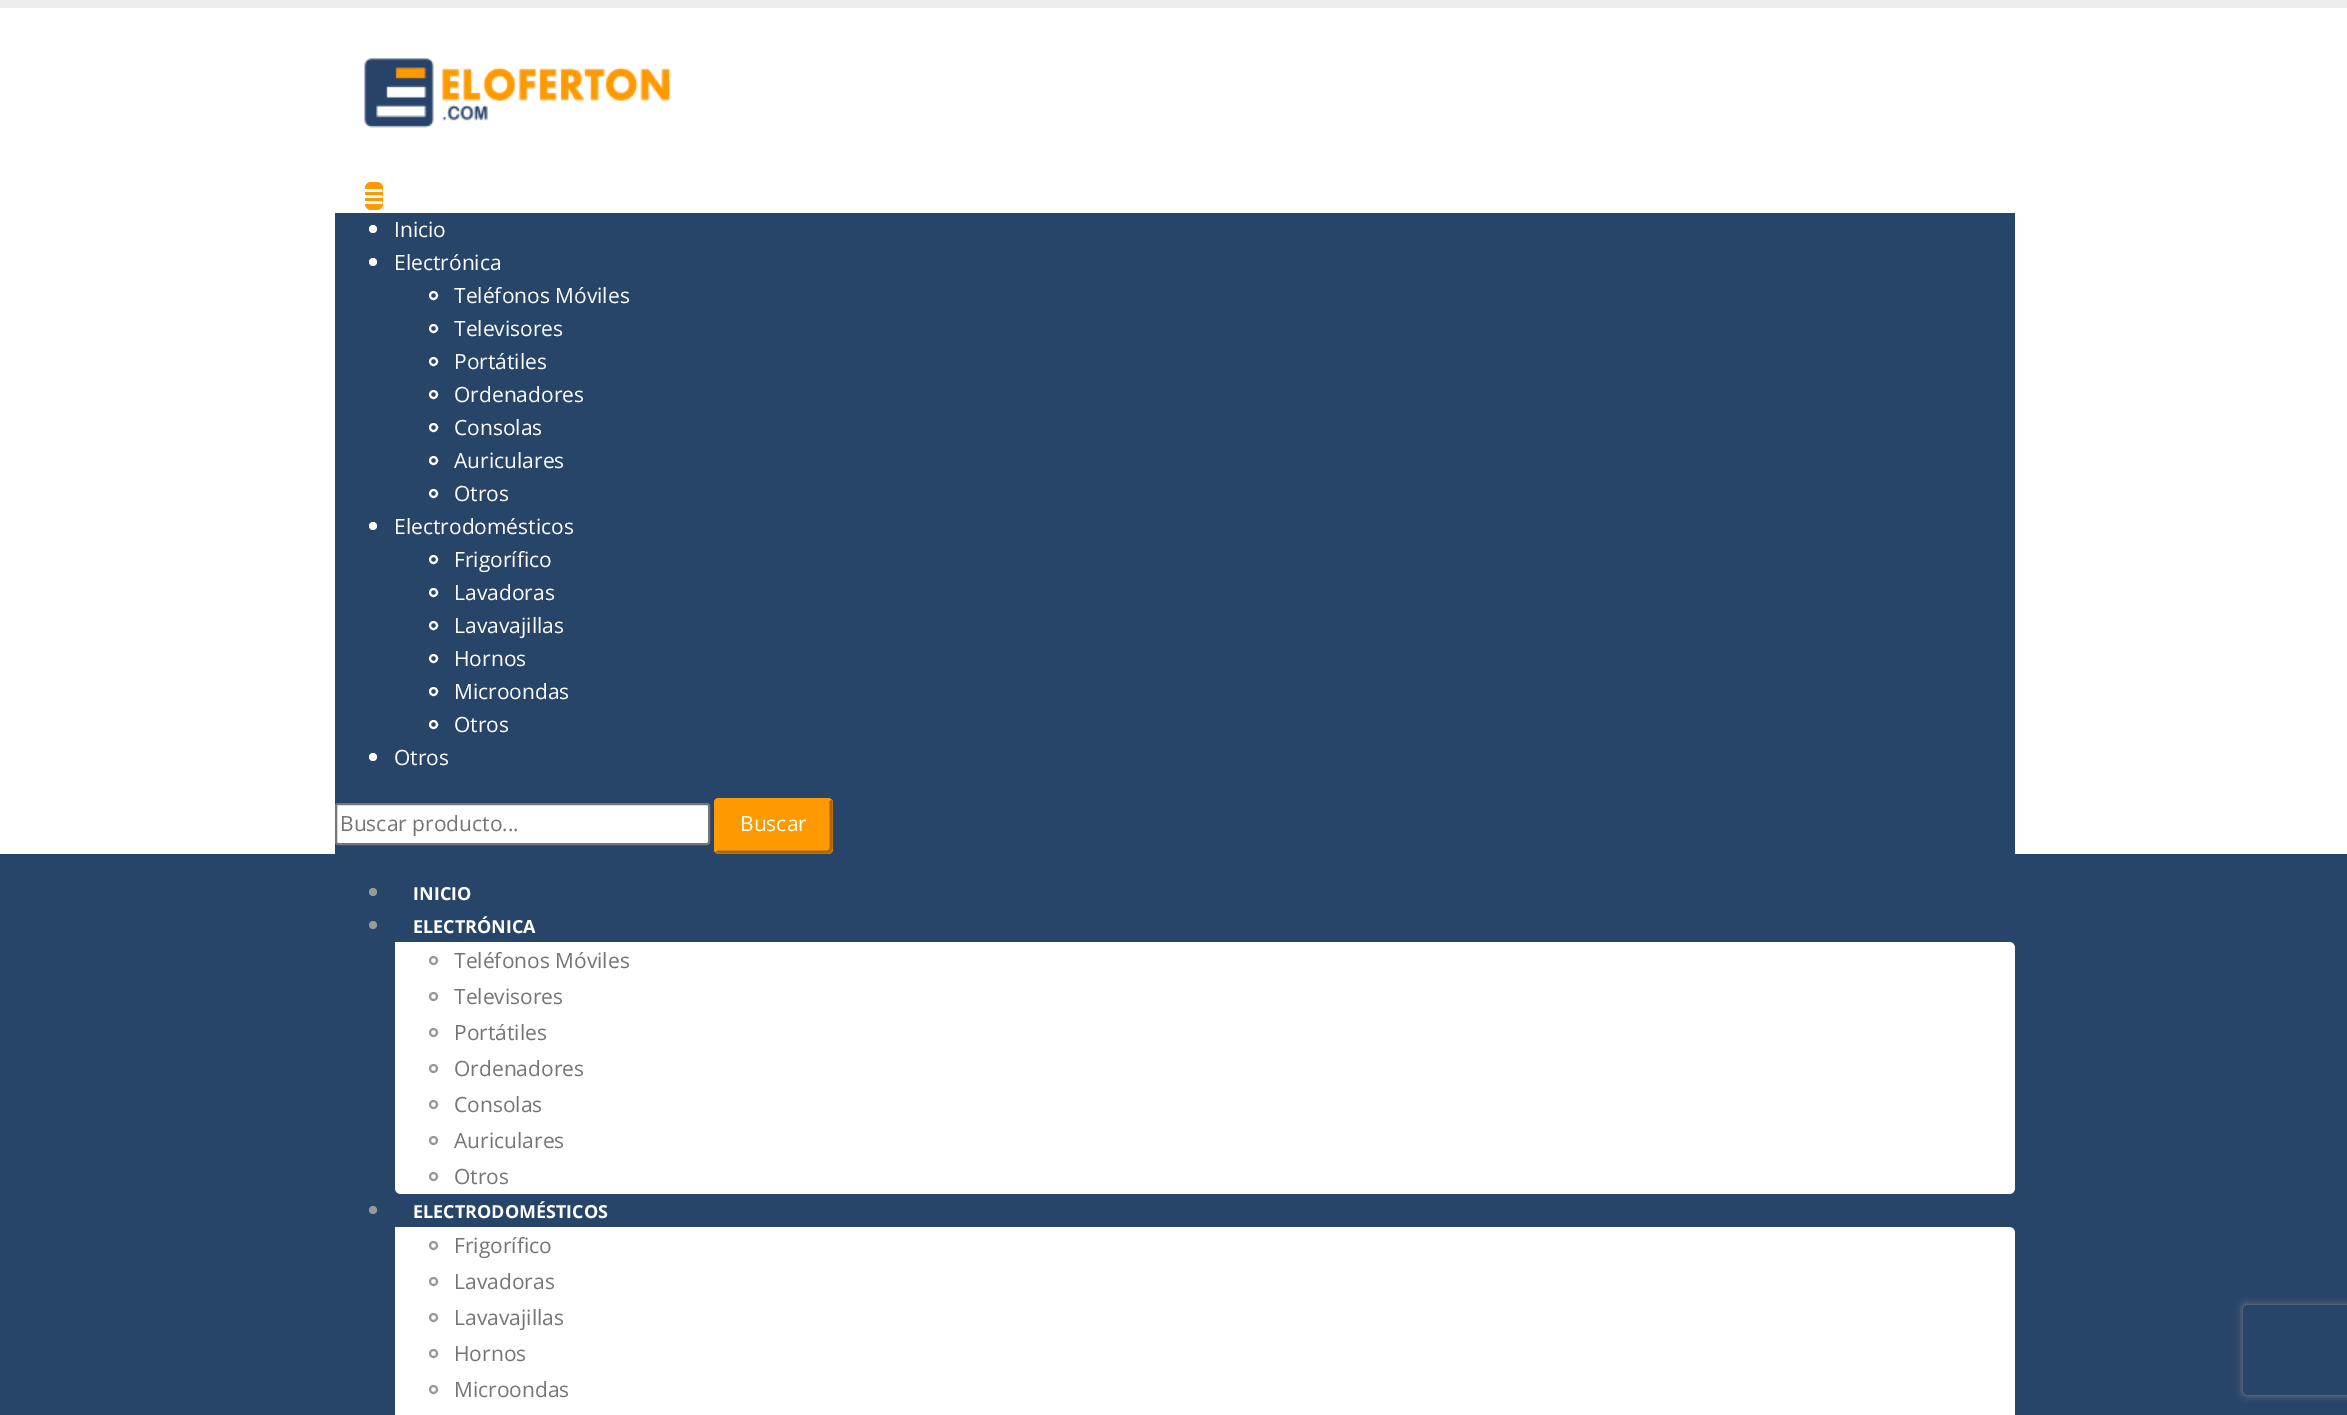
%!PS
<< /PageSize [2347 1415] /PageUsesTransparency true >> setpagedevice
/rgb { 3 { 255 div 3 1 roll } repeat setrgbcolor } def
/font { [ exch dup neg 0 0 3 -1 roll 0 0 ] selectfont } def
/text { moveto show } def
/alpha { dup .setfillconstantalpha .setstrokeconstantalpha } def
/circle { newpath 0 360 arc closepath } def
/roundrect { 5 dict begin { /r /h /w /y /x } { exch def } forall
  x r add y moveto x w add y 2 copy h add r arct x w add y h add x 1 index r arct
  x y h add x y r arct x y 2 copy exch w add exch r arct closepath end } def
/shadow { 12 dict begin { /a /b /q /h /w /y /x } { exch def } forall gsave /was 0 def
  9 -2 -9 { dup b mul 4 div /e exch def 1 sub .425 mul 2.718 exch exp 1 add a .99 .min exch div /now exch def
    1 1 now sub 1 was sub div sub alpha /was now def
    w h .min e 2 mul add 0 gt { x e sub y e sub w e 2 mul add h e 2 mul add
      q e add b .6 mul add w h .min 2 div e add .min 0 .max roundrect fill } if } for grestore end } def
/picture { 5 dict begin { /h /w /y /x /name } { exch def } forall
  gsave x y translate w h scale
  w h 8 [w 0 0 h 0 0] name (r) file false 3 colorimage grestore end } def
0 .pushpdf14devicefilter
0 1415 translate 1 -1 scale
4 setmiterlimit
255 255 255 rgb
0 0 2347 1415 rectfill
237 237 237 rgb
0 0 2347 8 rectfill
(img_01.rgb) 364 58 307 70 picture
255 153 0 rgb
365 182 18 28 6 roundrect fill
(img_02.rgb) 365 189 18 15 picture
39 68 105 rgb
335 213 1680 641 rectfill
255 255 255 rgb
373 229 4 circle fill
373 262 4 circle fill
2 setlinewidth
433.5 295.5 3.5 circle stroke
433.5 328.5 3.5 circle stroke
433.5 361.5 3.5 circle stroke
433.5 394.5 3.5 circle stroke
433.5 427.5 3.5 circle stroke
433.5 460.5 3.5 circle stroke
433.5 493.5 3.5 circle stroke
373 526 4 circle fill
433.5 559.5 3.5 circle stroke
433.5 592.5 3.5 circle stroke
433.5 625.5 3.5 circle stroke
433.5 658.5 3.5 circle stroke
433.5 691.5 3.5 circle stroke
433.5 724.5 3.5 circle stroke
373 757 4 circle fill
336 804 373 40 2 roundrect gsave fill grestore
118 118 118 rgb
stroke
255 153 0 rgb
714 798 119 56 5 roundrect fill
170 102 0 rgb
3 setlinewidth
830 800.5 moveto 1 2 rlineto 0 46.5 rlineto -1 2 rlineto -2 1 rlineto -109.5 0 rlineto -2 -1 rlineto stroke
255 153 0 rgb
716.5 851 moveto -1 -2 rlineto 0 -46.5 rlineto 1 -2 rlineto 2 -1 rlineto 109.5 0 rlineto 2 1 rlineto stroke
39 68 105 rgb
0 854 2347 561 rectfill
153 153 153 rgb
373 892 4 circle fill
373 925 4 circle fill
255 255 255 rgb
395 942 moveto 1614 0 rlineto 3.5 0 6 2.5 6 6 rcurveto 0 240 rlineto 0 3.5 -2.5 6 -6 6 rcurveto -1608 0 rlineto -3.5 0 -6 -2.5 -6 -6 rcurveto closepath fill
153 153 153 rgb
2 setlinewidth
433.5 960.5 3.5 circle stroke
433.5 996.5 3.5 circle stroke
433.5 1032.5 3.5 circle stroke
433.5 1068.5 3.5 circle stroke
433.5 1104.5 3.5 circle stroke
433.5 1140.5 3.5 circle stroke
433.5 1176.5 3.5 circle stroke
373 1210 4 circle fill
255 255 255 rgb
395 1227 moveto 1614 0 rlineto 3.5 0 6 2.5 6 6 rcurveto 0 182 rlineto 0 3.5 -2.5 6 -6 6 rcurveto -1608 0 rlineto -3.5 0 -6 -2.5 -6 -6 rcurveto closepath fill
153 153 153 rgb
433.5 1245.5 3.5 circle stroke
433.5 1281.5 3.5 circle stroke
433.5 1317.5 3.5 circle stroke
433.5 1353.5 3.5 circle stroke
433.5 1389.5 3.5 circle stroke
gsave
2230 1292 moveto 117 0 rlineto 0 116 rlineto -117 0 rlineto closepath 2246 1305 moveto 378 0 rlineto 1.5 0 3 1.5 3 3 rcurveto 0 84 rlineto 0 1.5 -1.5 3 -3 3 rcurveto -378 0 rlineto -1.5 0 -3 -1.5 -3 -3 rcurveto 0 -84 rlineto 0 -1.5 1.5 -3 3 -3 rcurveto closepath eoclip newpath
128 128 128 rgb
2243 1305 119 90 3 4 1 shadow
grestore
/OpenSans-Regular 21 font
255 255 255 rgb
(Inicio) 394 237 text
(Electrónica) 394 270 text
(Teléfonos Móviles) 454 303 text
(Televisores) 454 336 text
(Portátiles) 454 369 text
(Ordenadores) 454 402 text
(Consolas) 454 435 text
(Auriculares) 454 468 text
(Otros) 454 501 text
(Electrodomésticos) 394 534 text
(Frigorífico) 454 567 text
(Lavadoras) 454 600 text
(Lavavajillas) 454 633 text
(Hornos) 454 666 text
(Microondas) 454 699 text
(Otros) 454 732 text
(Otros) 394 765 text
117 117 117 rgb
(Buscar producto...) 340 831 text
255 255 255 rgb
(Buscar) 740 831 text
/OpenSans-Bold 18 font
(INICIO) 413 900 text
(ELECTRÓNICA) 413 933 text
/OpenSans-Regular 21 font
117 117 117 rgb
(Teléfonos Móviles) 454 968 text
(Televisores) 454 1004 text
(Portátiles) 454 1040 text
(Ordenadores) 454 1076 text
(Consolas) 454 1112 text
(Auriculares) 454 1148 text
(Otros) 454 1184 text
/OpenSans-Bold 18 font
255 255 255 rgb
(ELECTRODOMÉSTICOS) 413 1218 text
/OpenSans-Regular 21 font
117 117 117 rgb
(Frigorífico) 454 1253 text
(Lavadoras) 454 1289 text
(Lavavajillas) 454 1325 text
(Hornos) 454 1361 text
(Microondas) 454 1397 text
.poppdf14devicefilter showpage
